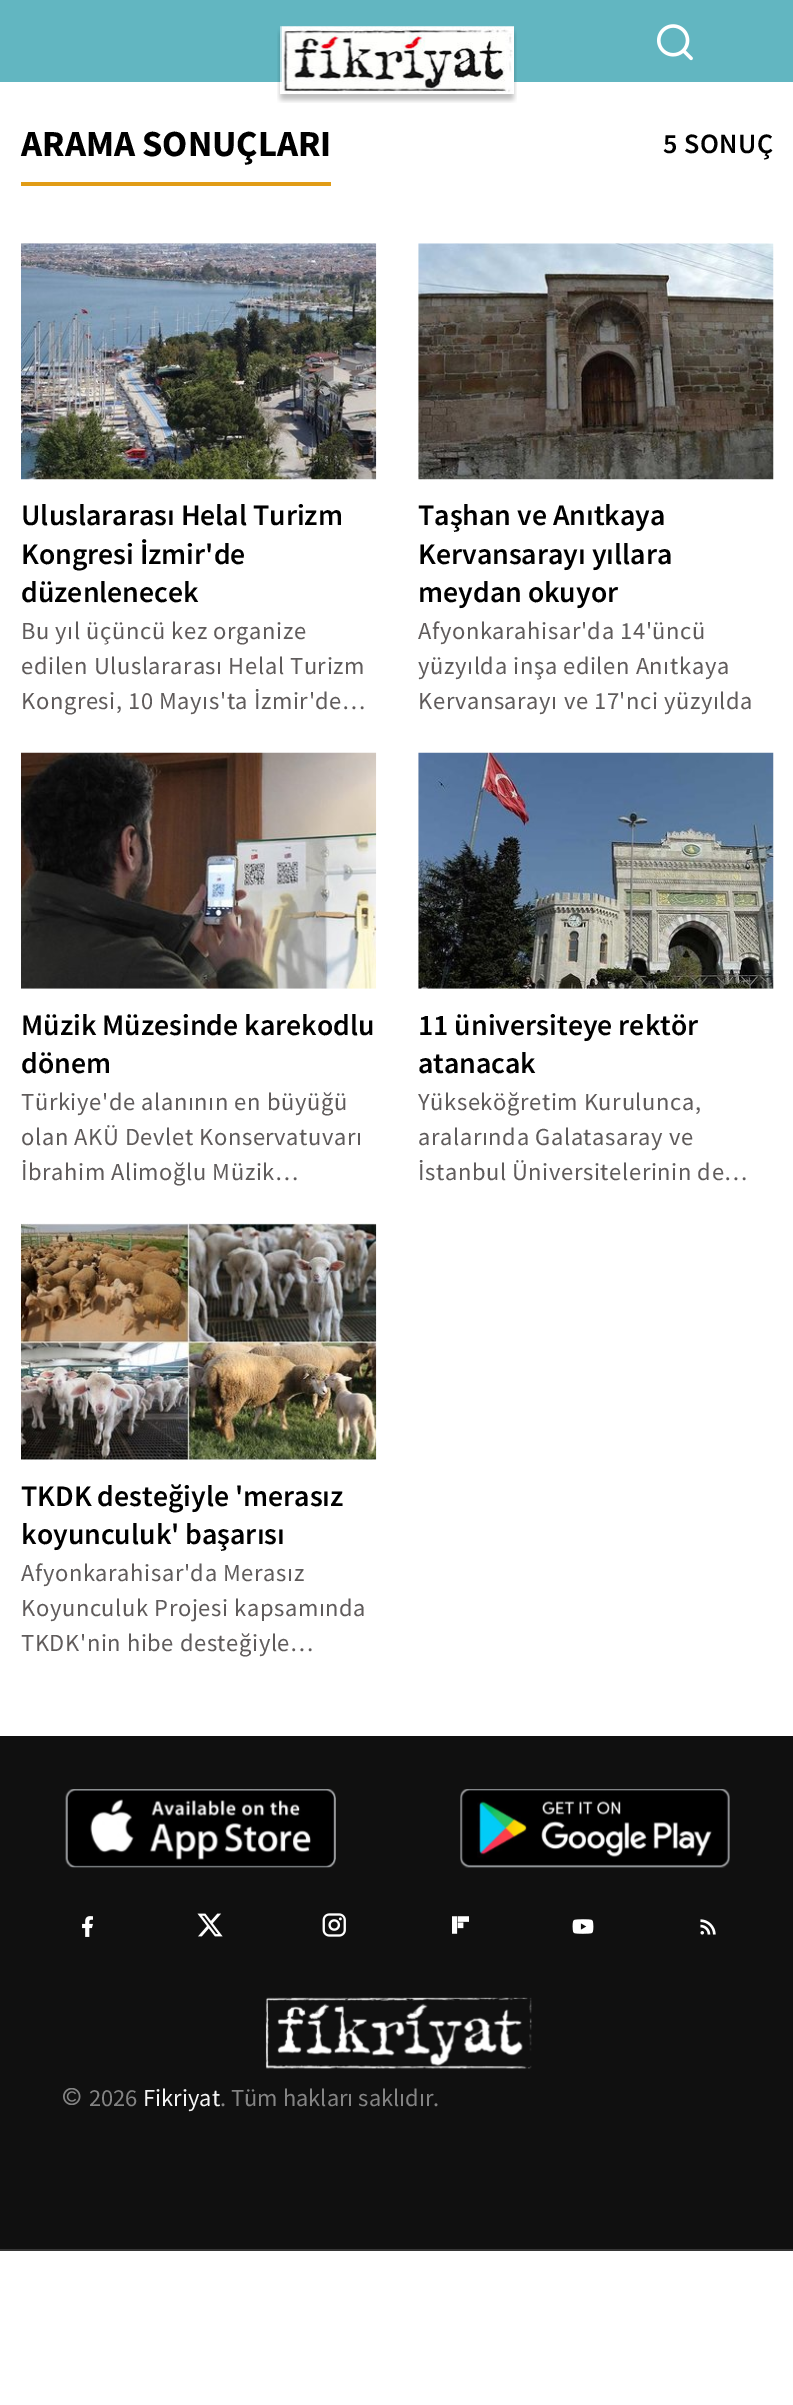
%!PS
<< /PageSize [793 2405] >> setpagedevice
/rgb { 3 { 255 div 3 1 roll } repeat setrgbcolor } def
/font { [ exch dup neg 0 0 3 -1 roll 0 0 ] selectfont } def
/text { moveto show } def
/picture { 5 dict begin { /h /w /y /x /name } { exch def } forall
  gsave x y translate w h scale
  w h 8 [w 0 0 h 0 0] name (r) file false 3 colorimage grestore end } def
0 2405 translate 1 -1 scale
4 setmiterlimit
255 255 255 rgb
0 0 793 2405 rectfill
98 182 193 rgb
0 0 793 82 rectfill
(img_01.rgb) 277 26 240 77 picture
(img_02.rgb) 657 24 36 37 picture
225 156 22 rgb
21 182 310 4 rectfill
(img_03.rgb) 21 243 356 237 picture
(img_04.rgb) 418 243 356 237 picture
(img_05.rgb) 21 752 356 237 picture
(img_06.rgb) 418 752 356 237 picture
(img_07.rgb) 21 1223 356 237 picture
16 16 16 rgb
0 1736 793 513 rectfill
54 54 54 rgb
0 2249 793 2 rectfill
(img_08.rgb) 65 1789 271 79 picture
(img_09.rgb) 460 1789 270 79 picture
(img_10.rgb) 82 1916 11 21 picture
(img_11.rgb) 197 1913 26 24 picture
(img_12.rgb) 322 1913 24 24 picture
(img_13.rgb) 452 1916 17 18 picture
(img_14.rgb) 572 1919 22 15 picture
(img_15.rgb) 700 1919 16 16 picture
(img_16.rgb) 265 1997 267 72 picture
(img_17.rgb) 63 2088 18 17 picture
/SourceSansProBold-Bold 36.75 font
0 0 0 rgb
(ARAMA SONUÇLARI) 21 156 text
/SourceSansPro-SemiBold 28 font
663 153 moveto 0.5 0 (5 SONUÇ) ashow
/SourceSansPro-SemiBold 29.75 font
(Uluslararası Helal Turizm) 21 525 text
(Kongresi İzmir'de) 21 564 text
(düzenlenecek) 21 602 text
/SourceSansPro-Regular 24.5 font
95 91 91 rgb
21 639 moveto 0.6 0 (Bu yıl üçüncü kez organize) ashow
21 674 moveto 0.6 0 (edilen Uluslararası Helal Turizm) ashow
21 709 moveto 0.6 0 (Kongresi, 10 Mayıs'ta İzmir'de…) ashow
/SourceSansPro-SemiBold 29.75 font
0 0 0 rgb
(Taşhan ve Anıtkaya) 418 525 text
(Kervansarayı yıllara) 418 564 text
(meydan okuyor) 418 602 text
/SourceSansPro-Regular 24.5 font
95 91 91 rgb
418 639 moveto 0.6 0 (Afyonkarahisar'da 14'üncü) ashow
418 674 moveto 0.6 0 (yüzyılda inşa edilen Anıtkaya) ashow
418 709 moveto 0.6 0 (Kervansarayı ve 17'nci yüzyılda) ashow
/SourceSansPro-SemiBold 29.75 font
0 0 0 rgb
(Müzik Müzesinde karekodlu) 21 1035 text
(dönem) 21 1073 text
/SourceSansPro-Regular 24.5 font
95 91 91 rgb
21 1110 moveto 0.6 0 (Türkiye'de alanının en büyüğü) ashow
21 1145 moveto 0.6 0 (olan AKÜ Devlet Konservatuvarı) ashow
21 1180 moveto 0.6 0 (İbrahim Alimoğlu Müzik…) ashow
/SourceSansPro-SemiBold 29.75 font
0 0 0 rgb
(11 üniversiteye rektör) 418 1035 text
(atanacak) 418 1073 text
/SourceSansPro-Regular 24.5 font
95 91 91 rgb
418 1110 moveto 0.6 0 (Yükseköğretim Kurulunca,) ashow
418 1145 moveto 0.6 0 (aralarında Galatasaray ve) ashow
418 1180 moveto 0.6 0 (İstanbul Üniversitelerinin de…) ashow
/SourceSansPro-SemiBold 29.75 font
0 0 0 rgb
(TKDK desteğiyle 'merasız) 21 1506 text
(koyunculuk' başarısı) 21 1544 text
/SourceSansPro-Regular 24.5 font
95 91 91 rgb
21 1581 moveto 0.6 0 (Afyonkarahisar'da Merasız) ashow
21 1616 moveto 0.6 0 (Koyunculuk Projesi kapsamında) ashow
21 1651 moveto 0.6 0 (TKDK'nin hibe desteğiyle…) ashow
132 132 132 rgb
(2026) 89 2106 text
246 246 246 rgb
(Fikriyat) 143 2106 text
132 132 132 rgb
(. Tüm hakları saklıdır.) 220 2106 text
showpage
